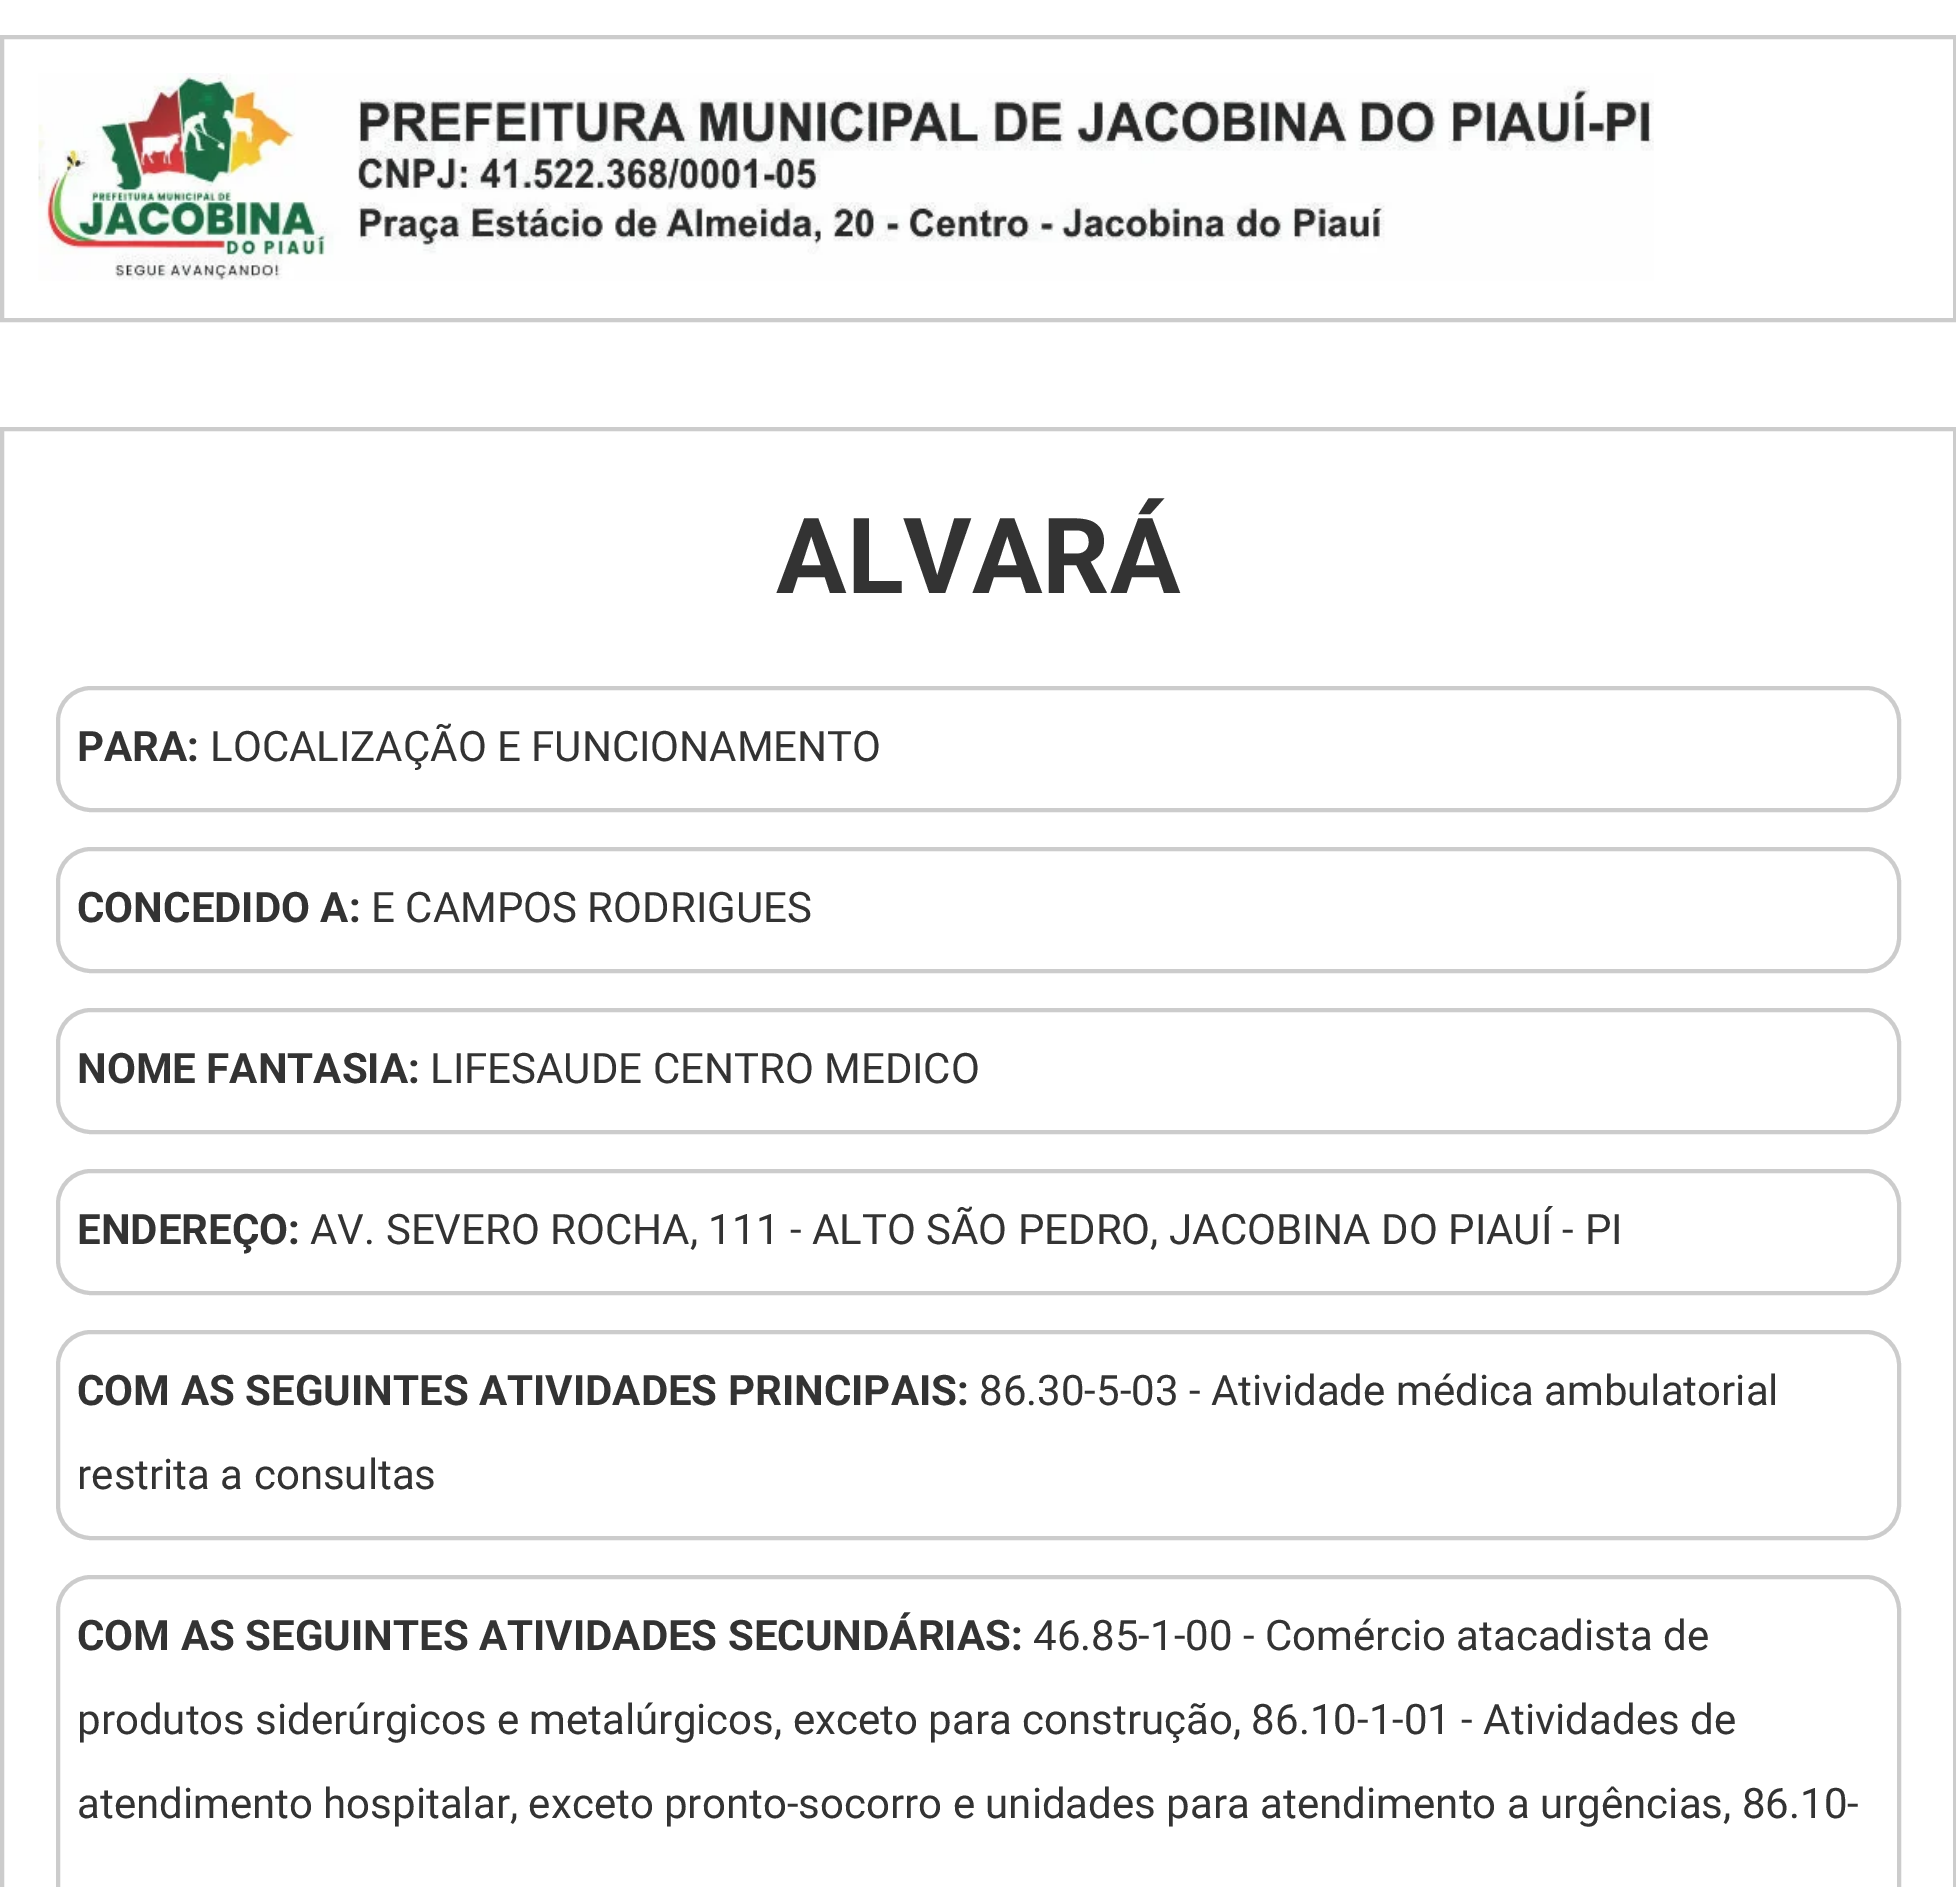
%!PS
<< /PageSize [1956 1887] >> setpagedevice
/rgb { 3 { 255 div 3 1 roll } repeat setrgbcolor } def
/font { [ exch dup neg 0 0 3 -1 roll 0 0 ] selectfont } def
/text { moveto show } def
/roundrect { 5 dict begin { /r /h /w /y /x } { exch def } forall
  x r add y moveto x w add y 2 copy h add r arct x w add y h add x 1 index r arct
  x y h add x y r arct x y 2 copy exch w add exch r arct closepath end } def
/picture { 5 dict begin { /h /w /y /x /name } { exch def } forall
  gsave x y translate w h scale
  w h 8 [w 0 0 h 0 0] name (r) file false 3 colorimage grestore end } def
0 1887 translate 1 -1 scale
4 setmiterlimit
255 255 255 rgb
0 0 1956 1887 rectfill
204 204 204 rgb
4 setlinewidth
2 37 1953 283 rectstroke
(img_01.rgb) 38 73 1616 208 picture
2 429 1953 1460 rectstroke
58 688 1841 122 33 roundrect stroke
58 849 1841 122 33 roundrect stroke
58 1010 1841 122 33 roundrect stroke
58 1171 1841 122 33 roundrect stroke
58 1332 1841 206 33 roundrect stroke
58 1577 1841 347 33 roundrect stroke
/Roboto-Bold 105 font
51 51 51 rgb
(ALVARÁ) 776 593 text
/Roboto-Bold 42 font
(PARA:) 77 761 text
/Roboto-Regular 42 font
(LOCALIZAÇÃO E FUNCIONAMENTO) 210 761 text
/Roboto-Bold 42 font
(CONCEDIDO A:) 77 922 text
/Roboto-Regular 42 font
(E CAMPOS RODRIGUES) 371 922 text
/Roboto-Bold 42 font
(NOME FANTASIA:) 77 1083 text
/Roboto-Regular 42 font
(LIFESAUDE CENTRO MEDICO) 430 1083 text
/Roboto-Bold 42 font
(ENDEREÇO:) 77 1244 text
/Roboto-Regular 42 font
(AV. SEVERO ROCHA, 111 - ALTO SÃO PEDRO, JACOBINA DO PIAUÍ - PI) 310 1244 text
/Roboto-Bold 42 font
(COM AS SEGUINTES ATIVIDADES PRINCIPAIS:) 77 1405 text
/Roboto-Regular 42 font
(86.30-5-03 - Atividade médica ambulatorial) 979 1405 text
(restrita a consultas) 77 1489 text
/Roboto-Bold 42 font
(COM AS SEGUINTES ATIVIDADES SECUNDÁRIAS:) 77 1650 text
/Roboto-Regular 42 font
(46.85-1-00 - Comércio atacadista de) 1033 1650 text
(produtos siderúrgicos e metalúrgicos, exceto para construção, 86.10-1-01 - Atividades de) 77 1734 text
(atendimento hospitalar, exceto pronto-socorro e unidades para atendimento a urgências, 86.10-) 77 1818 text
showpage
